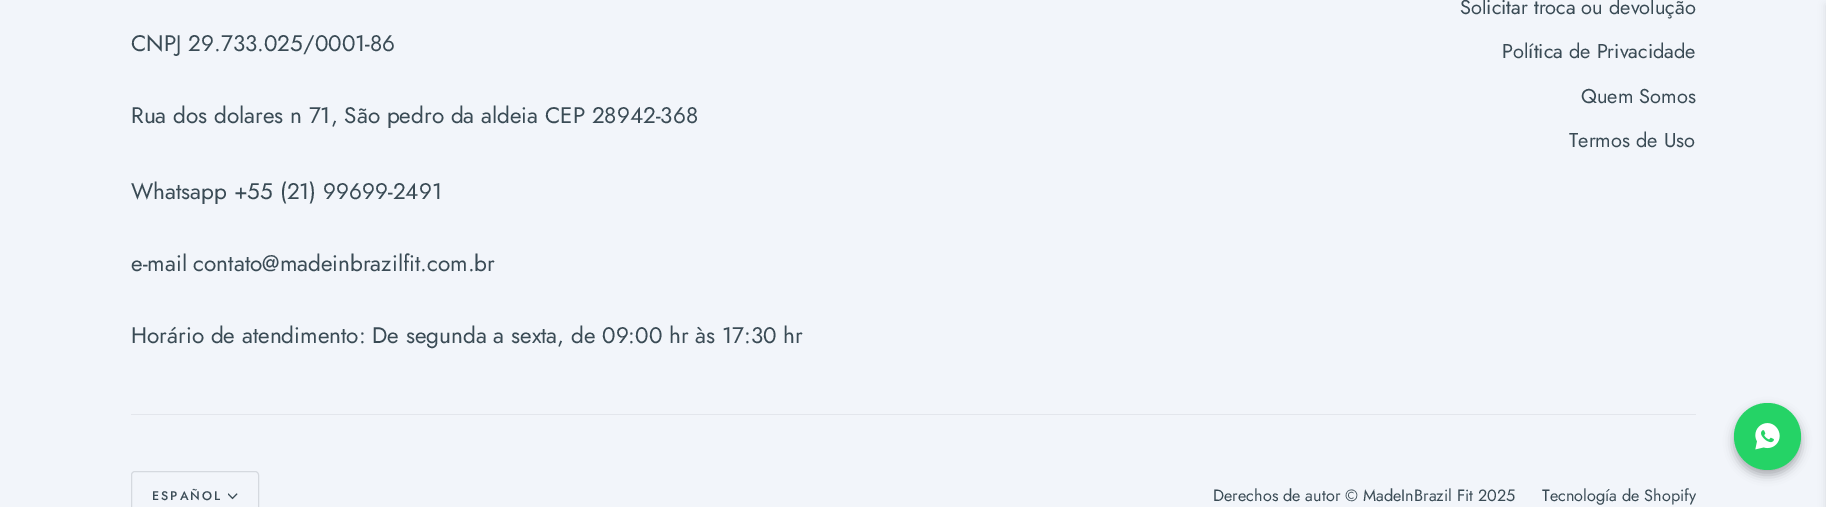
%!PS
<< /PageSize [1826 507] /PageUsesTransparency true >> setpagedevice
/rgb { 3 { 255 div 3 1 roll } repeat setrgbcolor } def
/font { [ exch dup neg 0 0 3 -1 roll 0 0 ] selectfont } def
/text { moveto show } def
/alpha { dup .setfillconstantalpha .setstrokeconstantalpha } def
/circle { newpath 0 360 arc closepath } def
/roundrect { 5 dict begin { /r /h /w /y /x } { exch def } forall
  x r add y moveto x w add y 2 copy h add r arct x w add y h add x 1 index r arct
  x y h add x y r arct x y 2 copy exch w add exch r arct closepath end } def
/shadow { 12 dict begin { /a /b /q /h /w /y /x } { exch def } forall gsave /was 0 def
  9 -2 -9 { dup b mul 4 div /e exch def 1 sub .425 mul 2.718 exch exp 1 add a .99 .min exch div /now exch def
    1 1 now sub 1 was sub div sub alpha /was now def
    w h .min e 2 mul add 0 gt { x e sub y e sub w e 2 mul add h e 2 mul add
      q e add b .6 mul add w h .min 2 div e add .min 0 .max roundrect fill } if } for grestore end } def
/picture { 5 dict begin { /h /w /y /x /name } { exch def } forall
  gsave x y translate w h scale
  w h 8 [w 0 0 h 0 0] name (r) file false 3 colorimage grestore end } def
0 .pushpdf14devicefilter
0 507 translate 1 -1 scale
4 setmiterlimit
242 245 250 rgb
0 0 1826 507 rectfill
227 230 236 rgb
131 414 1565 1 rectfill
213 217 223 rgb
131.5 471.5 127 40 3.5 roundrect stroke
(img_01.rgb) 228 493 10 7 picture
0 0 0 rgb
1734 408 67 67 33.5 5 0.3 shadow
37 211 102 rgb
1767.5 436.5 33.5 circle fill
(img_02.rgb) 1755 423 25 27 picture
0 0 0 rgb
1826 5 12 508 0 4 0.1 shadow
/Jost-Regular 22.5 font
58 75 85 rgb
(CNPJ 29.733.025/0001-86) 131 51 text
(Rua dos dolares n 71, São pedro da aldeia CEP 28942-368) 131 123 text
(Whatsapp +55 \(21\) 99699-2491) 131 199 text
(e-mail contato@madeinbrazilfit.com.br) 131 271 text
(Horário de atendimento: De segunda a sexta, de 09:00 hr às 17:30 hr) 131 343 text
/Jost-Regular 20 font
(Solicitar troca ou devolução) 1460 14 text
(Política de Privacidade) 1502 58 text
(Quem Somos) 1581 103 text
(Termos de Uso) 1569 147 text
/Jost-Medium 12.5 font
152 500 moveto 2 0 (ESPAÑOL) ashow
/Jost-Regular 16.25 font
(Derechos de autor © MadeInBrazil Fit 2025) 1213 501 text
(Tecnología de Shopify) 1542 501 text
.poppdf14devicefilter showpage
